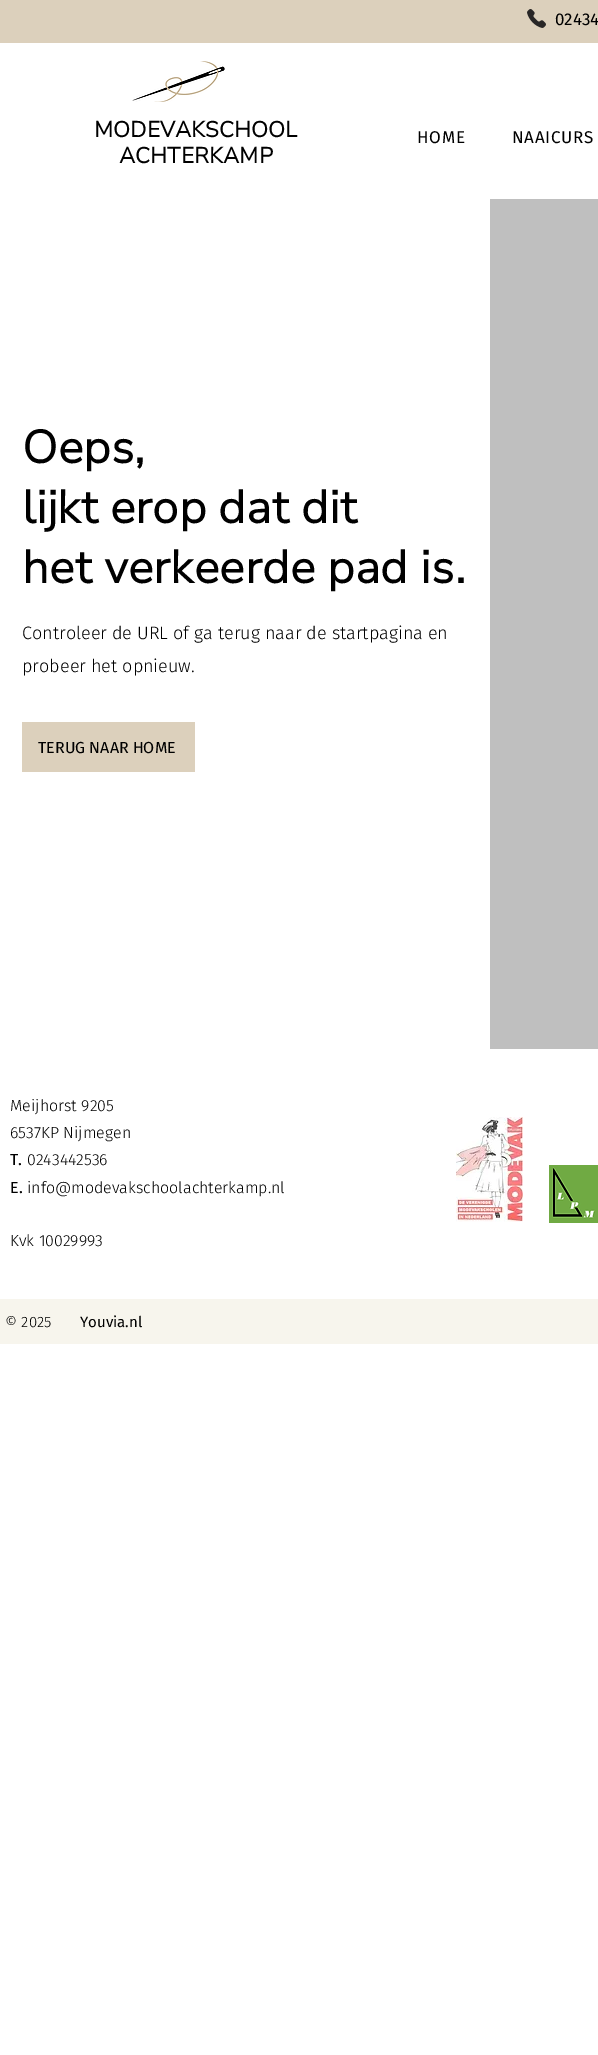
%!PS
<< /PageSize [598 2055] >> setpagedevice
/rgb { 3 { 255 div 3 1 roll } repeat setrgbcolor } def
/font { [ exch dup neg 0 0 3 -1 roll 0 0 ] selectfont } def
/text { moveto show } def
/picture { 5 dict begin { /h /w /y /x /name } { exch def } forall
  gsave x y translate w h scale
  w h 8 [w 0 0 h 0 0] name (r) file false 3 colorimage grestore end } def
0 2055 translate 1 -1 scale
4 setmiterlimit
255 255 255 rgb
0 0 598 2055 rectfill
220 208 188 rgb
0 0 598 43 rectfill
(img_01.rgb) 527 9 19 19 picture
(img_02.rgb) 132 61 93 41 picture
22 722 173 50 rectfill
191 191 191 rgb
490 199 108 850 rectfill
(img_03.rgb) 456 1117 67 105 picture
(img_04.rgb) 549 1165 49 58 picture
247 245 237 rgb
0 1299 598 45 rectfill
/FiraSans-Regular 17 font
0 0 0 rgb
(02434) 555 25 text
/NunitoSans-Bold 22 font
(MODEVAKSCHOOL) 94 137 text
(ACHTERKAMP) 119 163 text
/FiraSans-Regular 17 font
417 143 moveto 0.75 0 (HOME) ashow
512 143 moveto 0.75 0 (NAAICURS) ashow
/NunitoSans-Bold 46 font
(Oeps,) 22 463 text
(lijkt erop dat dit) 22 523 text
(het verkeerde pad is.) 22 583 text
/FiraSans-Light 18 font
(Controleer de URL of ga terug naar de startpagina en) 22 639 text
(probeer het opnieuw.) 22 672 text
/FiraSans-Regular 16 font
(TERUG NAAR HOME) 38 753 text
/FiraSans-Light 16 font
(Meijhorst 9205) 10 1111 text
(6537KP Nijmegen) 10 1138 text
/FiraSans-Regular 16 font
(T.) 10 1165 text
/FiraSans-Light 16 font
(0243442536) 27 1165 text
/FiraSans-Regular 16 font
(E.) 10 1193 text
/FiraSans-Light 16 font
(info@modevakschoolachterkamp.nl) 27 1193 text
(Kvk 10029993) 10 1246 text
/FiraSans-Light 15 font
(© 2025) 5 1327 text
/FiraSans-Regular 15 font
(Youvia.nl) 80 1327 text
showpage
